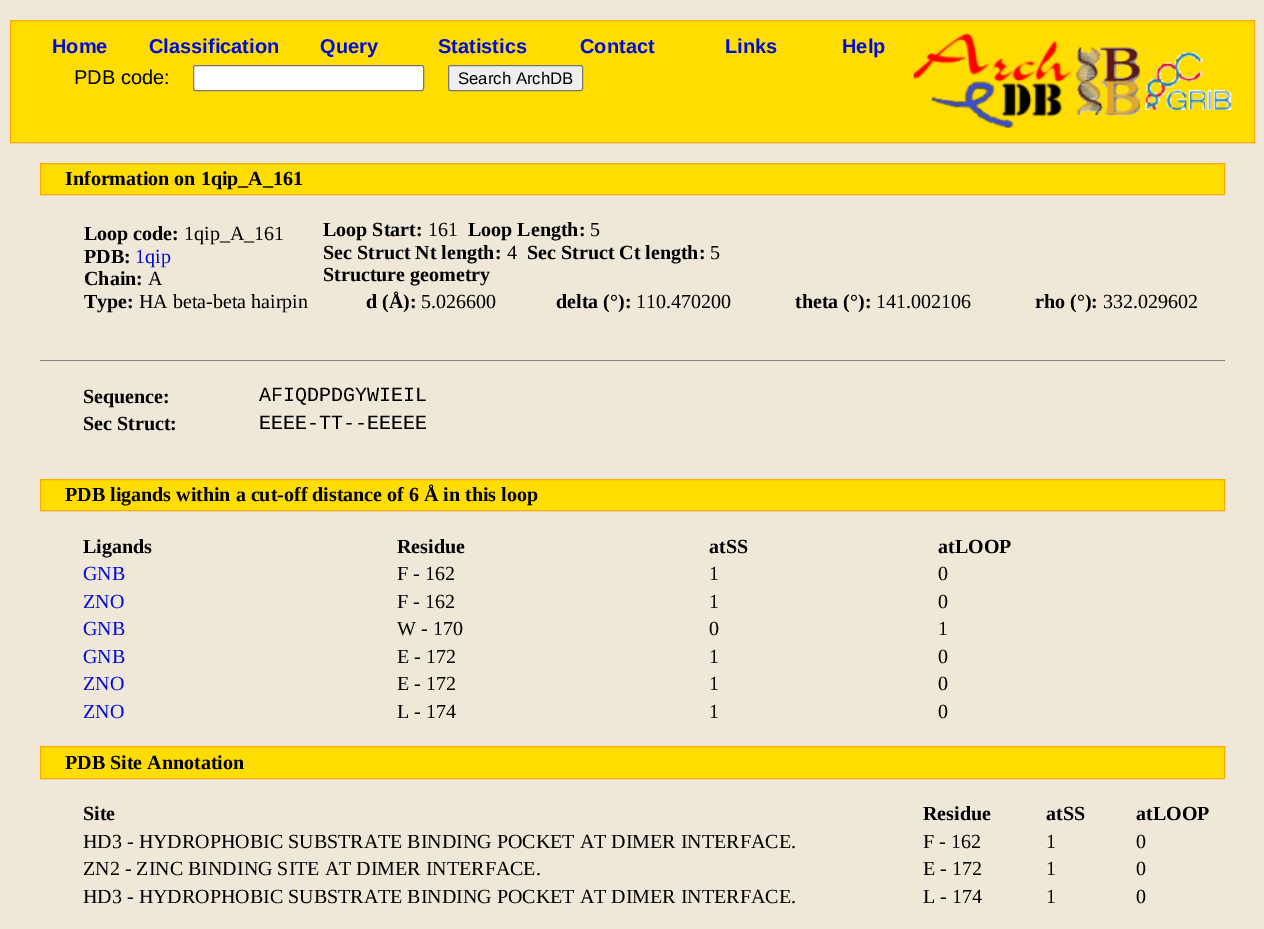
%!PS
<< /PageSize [1264 929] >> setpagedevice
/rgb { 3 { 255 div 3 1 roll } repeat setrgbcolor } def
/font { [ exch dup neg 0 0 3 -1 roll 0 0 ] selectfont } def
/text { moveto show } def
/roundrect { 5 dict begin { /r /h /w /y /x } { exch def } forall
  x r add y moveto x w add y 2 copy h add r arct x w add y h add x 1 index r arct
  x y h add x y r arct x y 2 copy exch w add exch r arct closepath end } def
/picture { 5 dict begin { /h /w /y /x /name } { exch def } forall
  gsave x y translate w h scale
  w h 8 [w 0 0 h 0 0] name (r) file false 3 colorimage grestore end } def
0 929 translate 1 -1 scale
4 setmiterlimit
239 232 217 rgb
0 0 1264 929 rectfill
255 221 0 rgb
10.5 20.5 moveto 1244 0 rlineto 0 122 rlineto -1244 0 rlineto closepath gsave fill grestore
255 168 0 rgb
stroke
255 255 255 rgb
193.5 65.5 230 25 2 roundrect gsave fill grestore
118 118 118 rgb
stroke
239 239 239 rgb
448.5 65.5 134 25 2 roundrect gsave fill grestore
118 118 118 rgb
stroke
(img_01.rgb) 913 33 159 95 picture
(img_02.rgb) 1076 47 64 68 picture
(img_03.rgb) 1145 52 87 58 picture
255 221 0 rgb
40.5 163.5 moveto 1184 0 rlineto 0 31 rlineto -1184 0 rlineto closepath gsave fill grestore
255 168 0 rgb
stroke
128 128 128 rgb
40 360 1185 1 rectfill
255 221 0 rgb
40.5 479.5 moveto 1184 0 rlineto 0 31 rlineto -1184 0 rlineto closepath gsave fill grestore
255 168 0 rgb
stroke
255 221 0 rgb
40.5 746.5 moveto 1184 0 rlineto 0 32 rlineto -1184 0 rlineto closepath gsave fill grestore
255 168 0 rgb
stroke
/LiberationSans-Bold 20 font
0 10 217 rgb
(Home) 52 53 text
(Classification) 149 53 text
(Query) 320 53 text
(Statistics) 438 53 text
(Contact) 580 53 text
(Links) 725 53 text
(Help) 842 53 text
/LiberationSans-Regular 20 font
0 0 0 rgb
(PDB code:) 74 84 text
/LiberationSans-Regular 16.75 font
(Search ArchDB) 458 84 text
/LiberationSerif-Bold 20 font
(Information on 1qip_A_161) 65 185 text
(Loop code:) 84 240 text
/LiberationSerif-Regular 20 font
(1qip_A_161) 184 240 text
/LiberationSerif-Bold 20 font
(PDB:) 84 263 text
/LiberationSerif-Regular 20 font
0 10 217 rgb
(1qip) 135 263 text
/LiberationSerif-Bold 20 font
0 0 0 rgb
(Chain:) 84 285 text
/LiberationSerif-Regular 20 font
(A) 148 285 text
/LiberationSerif-Bold 20 font
(Type:) 84 308 text
/LiberationSerif-Regular 20 font
(HA beta-beta hairpin) 139 308 text
/LiberationSerif-Bold 20 font
(Loop Start:) 323 236 text
/LiberationSerif-Regular 20 font
(161) 428 236 text
/LiberationSerif-Bold 20 font
(Loop Length:) 468 236 text
/LiberationSerif-Regular 20 font
(5) 590 236 text
/LiberationSerif-Bold 20 font
(Sec Struct Nt length:) 323 259 text
/LiberationSerif-Regular 20 font
(4) 507 259 text
/LiberationSerif-Bold 20 font
(Sec Struct Ct length:) 527 259 text
/LiberationSerif-Regular 20 font
(5) 710 259 text
/LiberationSerif-Bold 20 font
(Structure geometry) 323 281 text
(d \(Å\):) 366 308 text
/LiberationSerif-Regular 20 font
(5.026600) 421 308 text
/LiberationSerif-Bold 20 font
(delta \(°\):) 556 308 text
/LiberationSerif-Regular 20 font
(110.470200) 636 308 text
/LiberationSerif-Bold 20 font
(theta \(°\):) 795 308 text
/LiberationSerif-Regular 20 font
(141.002106) 876 308 text
/LiberationSerif-Bold 20 font
(rho \(°\):) 1035 308 text
/LiberationSerif-Regular 20 font
(332.029602) 1103 308 text
/LiberationSerif-Bold 20 font
(Sequence:) 83 403 text
/LiberationMono-Regular 20 font
(AFIQDPDGYWIEIL) 259 401 text
/LiberationSerif-Bold 20 font
(Sec Struct:) 83 430 text
/LiberationMono-Regular 20 font
(EEEE-TT--EEEEE) 259 429 text
/LiberationSerif-Bold 20 font
(PDB ligands within a cut-off distance of 6 Å in this loop) 65 501 text
(Ligands) 83 553 text
(Residue) 397 553 text
(atSS) 709 553 text
(atLOOP) 938 553 text
/LiberationSerif-Regular 20 font
0 10 217 rgb
(GNB) 83 580 text
0 0 0 rgb
(F - 162) 397 580 text
(1) 709 580 text
(0) 938 580 text
0 10 217 rgb
(ZNO) 83 608 text
0 0 0 rgb
(F - 162) 397 608 text
(1) 709 608 text
(0) 938 608 text
0 10 217 rgb
(GNB) 83 635 text
0 0 0 rgb
(W - 170) 397 635 text
(0) 709 635 text
(1) 938 635 text
0 10 217 rgb
(GNB) 83 663 text
0 0 0 rgb
(E - 172) 397 663 text
(1) 709 663 text
(0) 938 663 text
0 10 217 rgb
(ZNO) 83 690 text
0 0 0 rgb
(E - 172) 397 690 text
(1) 709 690 text
(0) 938 690 text
0 10 217 rgb
(ZNO) 83 718 text
0 0 0 rgb
(L - 174) 397 718 text
(1) 709 718 text
(0) 938 718 text
/LiberationSerif-Bold 20 font
(PDB Site Annotation) 65 769 text
(Site) 83 820 text
(Residue) 923 820 text
(atSS) 1046 820 text
(atLOOP) 1136 820 text
/LiberationSerif-Regular 20 font
(HD3 - HYDROPHOBIC SUBSTRATE BINDING POCKET AT DIMER INTERFACE.) 83 848 text
(F - 162) 923 848 text
(1) 1046 848 text
(0) 1136 848 text
(ZN2 - ZINC BINDING SITE AT DIMER INTERFACE.) 83 875 text
(E - 172) 923 875 text
(1) 1046 875 text
(0) 1136 875 text
(HD3 - HYDROPHOBIC SUBSTRATE BINDING POCKET AT DIMER INTERFACE.) 83 903 text
(L - 174) 923 903 text
(1) 1046 903 text
(0) 1136 903 text
showpage
